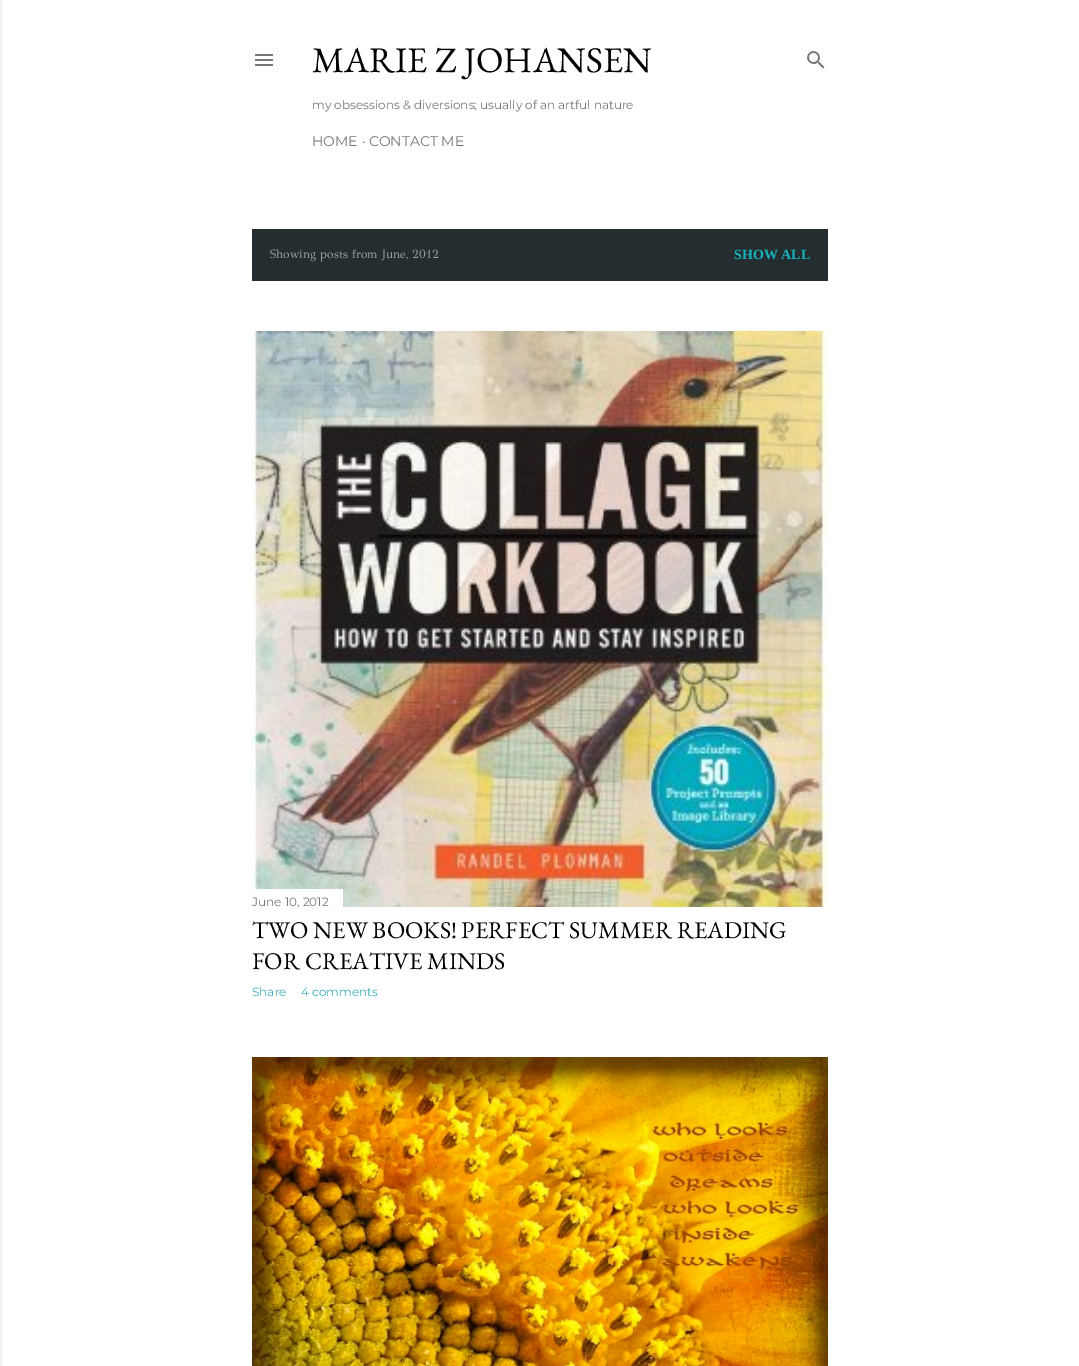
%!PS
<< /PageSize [1079 1366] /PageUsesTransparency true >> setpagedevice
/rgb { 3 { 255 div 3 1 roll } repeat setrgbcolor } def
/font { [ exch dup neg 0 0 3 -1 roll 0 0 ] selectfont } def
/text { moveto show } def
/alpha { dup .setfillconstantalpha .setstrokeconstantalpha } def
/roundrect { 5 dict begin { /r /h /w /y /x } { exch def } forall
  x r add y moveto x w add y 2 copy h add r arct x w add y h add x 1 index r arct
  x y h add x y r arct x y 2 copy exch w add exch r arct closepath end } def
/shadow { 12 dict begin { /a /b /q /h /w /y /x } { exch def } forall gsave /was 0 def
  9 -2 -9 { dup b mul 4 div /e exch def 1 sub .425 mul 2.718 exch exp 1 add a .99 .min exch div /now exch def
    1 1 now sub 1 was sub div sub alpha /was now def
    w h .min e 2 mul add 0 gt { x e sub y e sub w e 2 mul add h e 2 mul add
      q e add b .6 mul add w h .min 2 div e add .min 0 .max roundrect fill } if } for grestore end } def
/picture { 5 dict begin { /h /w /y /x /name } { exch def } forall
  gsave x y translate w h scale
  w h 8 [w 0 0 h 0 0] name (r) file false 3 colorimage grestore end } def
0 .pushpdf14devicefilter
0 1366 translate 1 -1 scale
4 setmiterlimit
255 255 255 rgb
0 0 1079 1366 rectfill
0 0 0 rgb
-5 0 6 1366 0 1.5 0.1 shadow
(img_01.rgb) 255 54 18 12 picture
(img_02.rgb) 807 51 18 18 picture
36 46 48 rgb
252 229 576 52 rectfill
(img_03.rgb) 252 331 576 576 picture
255 255 255 rgb
252 889 91 18 rectfill
(img_04.rgb) 252 1057 576 309 picture
/EBGaramond-Regular 36 font
0 0 0 rgb
(MARIE Z JOHANSEN) 312 72 text
/Montserrat-Regular 12 font
118 118 118 rgb
(my obsessions & diversions; usually of an artful nature) 312 109 text
/Montserrat-Regular 14 font
(HOME · CONTACT ME) 312 146 text
/GFSDidot-Regular 12 font
154 158 159 rgb
(Showing posts from June, 2012) 270 258 text
/LiberationSerif-Bold 14 font
21 182 190 rgb
(SHOW ALL) 734 259 text
/Montserrat-Regular 12 font
118 118 118 rgb
(June 10, 2012) 252 906 text
/EBGaramond-Regular 24 font
0 0 0 rgb
(TWO NEW BOOKS! PERFECT SUMMER READING) 252 938 text
(FOR CREATIVE MINDS) 252 969 text
/Montserrat-Regular 12 font
56 175 191 rgb
(Share) 252 996 text
(4 comments) 301 996 text
.poppdf14devicefilter showpage
